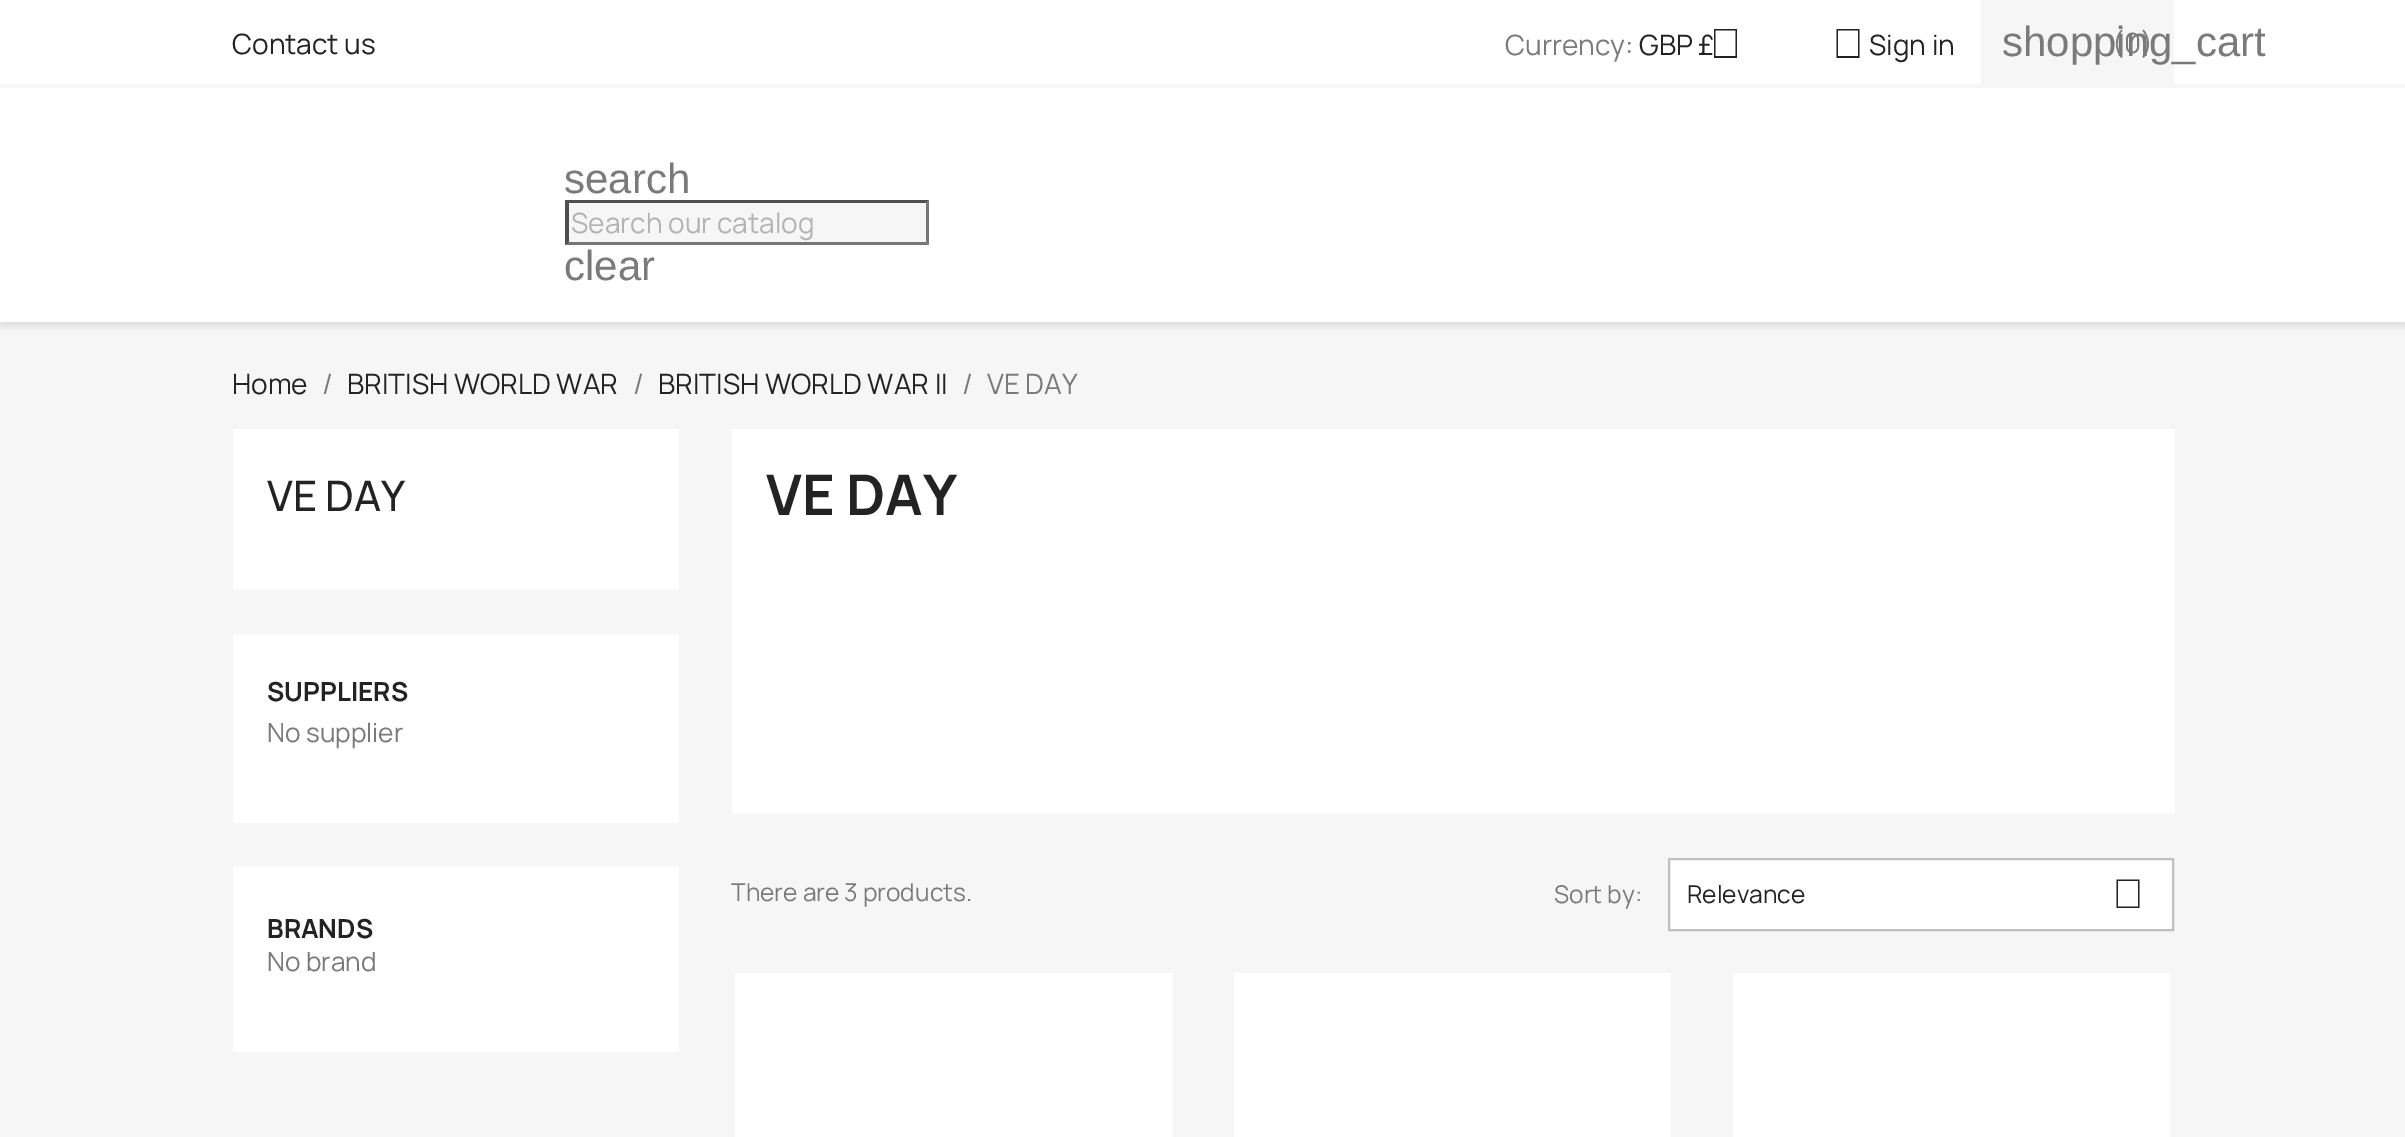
%!PS
<< /PageSize [2405 1137] /PageUsesTransparency true >> setpagedevice
/rgb { 3 { 255 div 3 1 roll } repeat setrgbcolor } def
/font { [ exch dup neg 0 0 3 -1 roll 0 0 ] selectfont } def
/text { moveto show } def
/alpha { dup .setfillconstantalpha .setstrokeconstantalpha } def
/roundrect { 5 dict begin { /r /h /w /y /x } { exch def } forall
  x r add y moveto x w add y 2 copy h add r arct x w add y h add x 1 index r arct
  x y h add x y r arct x y 2 copy exch w add exch r arct closepath end } def
/shadow { 12 dict begin { /a /b /q /h /w /y /x } { exch def } forall gsave /was 0 def
  9 -2 -9 { dup b mul 4 div /e exch def 1 sub .425 mul 2.718 exch exp 1 add a .99 .min exch div /now exch def
    1 1 now sub 1 was sub div sub alpha /was now def
    w h .min e 2 mul add 0 gt { x e sub y e sub w e 2 mul add h e 2 mul add
      q e add b .6 mul add w h .min 2 div e add .min 0 .max roundrect fill } if } for grestore end } def
0 .pushpdf14devicefilter
0 1137 translate 1 -1 scale
4 setmiterlimit
255 255 255 rgb
0 0 2405 1137 rectfill
246 246 246 rgb
0 322 2405 815 rectfill
gsave
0 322 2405 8 rectclip
0 0 0 rgb
0 4 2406 322 0 4.5 0.11 shadow
grestore
0 84 2405 4 rectfill
35 35 35 rgb
1714 29 moveto 23 0 rlineto 0 29 rlineto -23 0 rlineto closepath 1715.5 30.5 moveto 0 25.5 rlineto 20 0 rlineto 0 -25.5 rlineto closepath fill
1836.5 29 moveto 23 0 rlineto 0 29 rlineto -23 0 rlineto closepath 1838 30.5 moveto 0 25.5 rlineto 20 0 rlineto 0 -25.5 rlineto closepath fill
246 246 246 rgb
1981 0 193 84 rectfill
565 200 364 45 rectfill
79 79 79 rgb
565 200 moveto 364 0 rlineto -3 3 rlineto -357 0 rlineto closepath fill
118 118 118 rgb
929 200 moveto 0 45 rlineto -3 -3 rlineto 0 -39 rlineto closepath fill
929 245 moveto -364 0 rlineto 4 -3 rlineto 357 0 rlineto closepath fill
79 79 79 rgb
565 245 moveto 0 -45 rlineto 4 3 rlineto 0 39 rlineto closepath fill
255 255 255 rgb
233 429 446 161 rectfill
233 634 446 189 rectfill
233 866 446 186 rectfill
732 429 1443 385 rectfill
1669 859 moveto 504 0 rlineto 0 71 rlineto -504 0 rlineto closepath gsave fill grestore
191 191 191 rgb
2 setlinewidth
stroke
35 35 35 rgb
2116.5 879.5 moveto 23 0 rlineto 0 28.5 rlineto -23 0 rlineto closepath 2118 881 moveto 0 25.5 rlineto 20 0 rlineto 0 -25.5 rlineto closepath fill
255 255 255 rgb
735 973 438 164 rectfill
1234 973 437 164 rectfill
1733 973 437 164 rectfill
/Manrope-Regular 28 font
35 35 35 rgb
(Contact us) 232 54 text
122 122 122 rgb
(Currency:) 1505 55 text
35 35 35 rgb
(GBP £) 1639 55 text
(Sign in) 1869 55 text
/LiberationSans-Regular 42 font
122 122 122 rgb
(shopping_cart) 2002 56 text
/Manrope-Regular 28 font
(\(0\)) 2112 53 text
/LiberationSans-Regular 42 font
(search) 564 193 text
/Manrope-Regular 28 font
179 179 179 rgb
(Search our catalog) 571 233 text
/LiberationSans-Regular 42 font
122 122 122 rgb
(clear) 564 280 text
/Manrope-Regular 28 font
35 35 35 rgb
(Home) 232 394 text
122 122 122 rgb
(/) 322 394 text
35 35 35 rgb
(BRITISH WORLD WAR) 347 394 text
122 122 122 rgb
(/) 633 394 text
35 35 35 rgb
(BRITISH WORLD WAR II) 658 394 text
122 122 122 rgb
(/) 962 394 text
(VE DAY) 987 394 text
/Manrope-Medium 42 font
35 35 35 rgb
(VE DAY) 267 511 text
/Manrope-Bold 26.25 font
(SUPPLIERS) 267 701 text
/Manrope-Regular 26.25 font
122 122 122 rgb
(No supplier) 267 742 text
/Manrope-Bold 26.25 font
35 35 35 rgb
(BRANDS) 267 938 text
/Manrope-Regular 26.25 font
122 122 122 rgb
(No brand) 267 971 text
/Manrope-Bold 56 font
35 35 35 rgb
(VE DAY) 766 515 text
/Manrope-Regular 24.5 font
122 122 122 rgb
(There are 3 products.) 731 901 text
(Sort by:) 1554 903 text
35 35 35 rgb
(Relevance) 1687 903 text
.poppdf14devicefilter showpage
